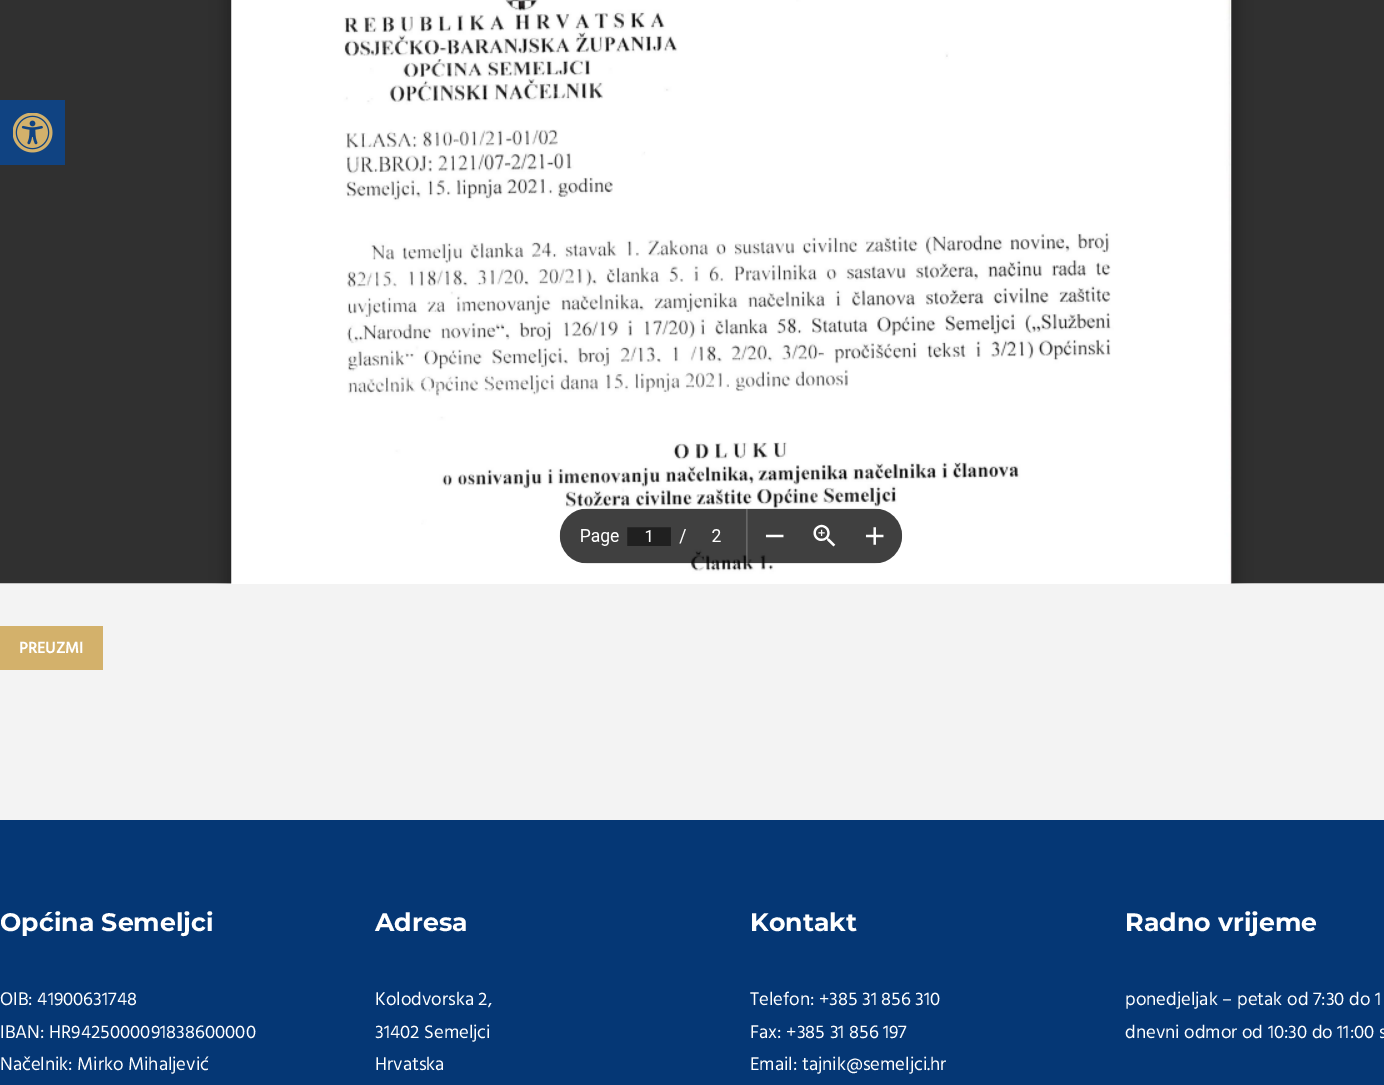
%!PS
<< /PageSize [1384 1085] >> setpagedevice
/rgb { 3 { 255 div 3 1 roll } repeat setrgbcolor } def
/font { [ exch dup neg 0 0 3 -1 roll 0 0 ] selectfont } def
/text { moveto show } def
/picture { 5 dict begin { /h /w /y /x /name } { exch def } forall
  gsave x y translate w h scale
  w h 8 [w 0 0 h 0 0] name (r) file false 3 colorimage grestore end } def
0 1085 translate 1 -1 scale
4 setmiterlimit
243 243 243 rgb
0 0 1384 1085 rectfill
(img_02.rgb) 0 0 1384 584 picture
16 67 130 rgb
0 100 65 65 rectfill
(img_01.rgb) 13 113 40 40 picture
211 177 107 rgb
0 626 103 44 rectfill
5 55 117 rgb
0 820 1384 265 rectfill
/Hind-Bold 16 font
255 255 255 rgb
(PREUZMI) 19 653 text
/Montserrat-Bold 25.25 font
(Općina Semeljci) 0 931 text
/Hind-Regular 18.75 font
(OIB: 41900631748) 0 1005 text
(IBAN: HR9425000091838600000) 0 1038 text
(Načelnik: Mirko Mihaljević) 0 1070 text
/Montserrat-Bold 25.25 font
(Adresa) 375 931 text
/Hind-Regular 18.75 font
(Kolodvorska 2,) 375 1005 text
(31402 Semeljci) 375 1038 text
(Hrvatska) 375 1070 text
/Montserrat-Bold 25.25 font
(Kontakt) 750 931 text
/Hind-Regular 18.75 font
(Telefon: +385 31 856 310) 750 1005 text
(Fax: +385 31 856 197) 750 1038 text
(Email: tajnik@semeljci.hr) 750 1070 text
/Montserrat-Bold 25.25 font
(Radno vrijeme) 1125 931 text
/Hind-Regular 18.75 font
(ponedjeljak – petak od 7:30 do 1) 1125 1005 text
(dnevni odmor od 10:30 do 11:00 s) 1125 1038 text
showpage
